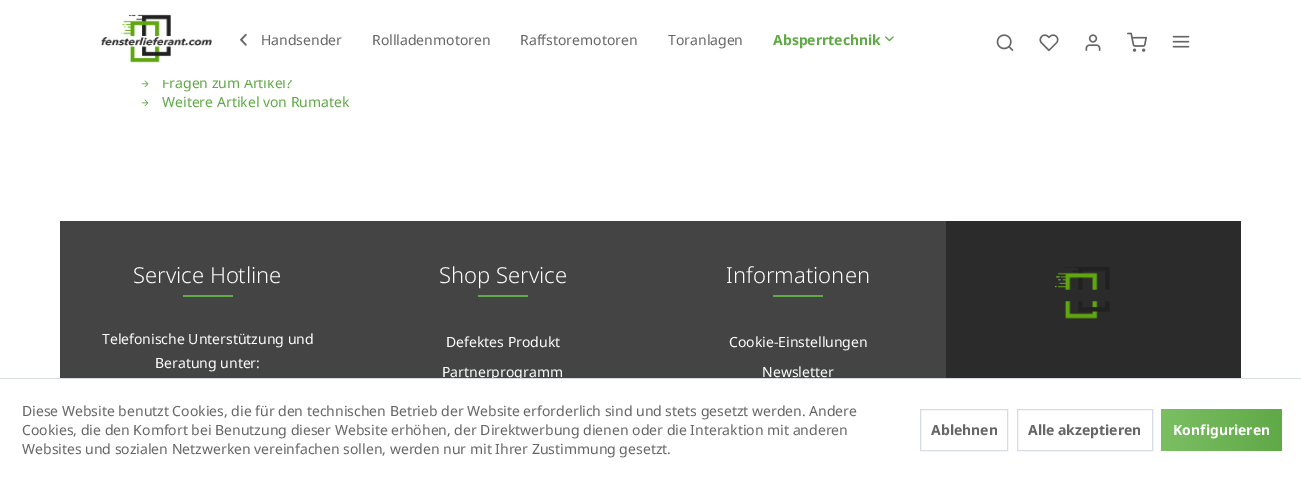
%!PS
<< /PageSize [1301 480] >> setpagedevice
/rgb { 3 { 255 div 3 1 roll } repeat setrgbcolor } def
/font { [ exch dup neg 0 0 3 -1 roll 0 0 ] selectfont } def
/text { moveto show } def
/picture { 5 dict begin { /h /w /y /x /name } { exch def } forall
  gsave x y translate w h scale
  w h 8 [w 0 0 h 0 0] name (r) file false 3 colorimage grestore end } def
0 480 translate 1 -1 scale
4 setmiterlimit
255 255 255 rgb
0 0 1301 480 rectfill
(img_01.rgb) 101 14 111 49 picture
(img_02.rgb) 240 33 7 13 picture
(img_03.rgb) 885 36 9 6 picture
(img_04.rgb) 996 34 18 17 picture
(img_05.rgb) 1039 34 20 18 picture
(img_06.rgb) 1085 34 16 17 picture
(img_07.rgb) 1127 32 20 20 picture
(img_08.rgb) 1172 35 18 13 picture
(img_09.rgb) 141 80 8 8 picture
(img_09.rgb) 141 99 8 8 picture
68 68 68 rgb
60 221 886 157 rectfill
96 169 70 rgb
183 295 50 2 rectfill
478 295 50 2 rectfill
773 295 50 2 rectfill
43 43 43 rgb
946 221 295 157 rectfill
(img_10.rgb) 1055 267 55 52 picture
215 219 227 rgb
920.5 409.5 87 41 rectstroke
1017.5 409.5 135 41 rectstroke
gsave 1161 409 moveto 121 0 rlineto 0 42 rlineto -121 0 rlineto closepath clip newpath
<< /ShadingType 2 /ColorSpace /DeviceRGB /Coords [1161 430 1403 430] /Extend [true true] /Function << /FunctionType 3 /Domain [0 1] /Functions [<< /FunctionType 2 /Domain [0 1] /C0 [0.482 0.749 0.388] /C1 [0.376 0.663 0.275] /N 1 >> << /FunctionType 2 /Domain [0 1] /C0 [0.376 0.663 0.275] /C1 [0.482 0.749 0.388] /N 1 >>] /Bounds [0.51] /Encode [0 1 0 1] >> >> shfill grestore
/NotoSans-Regular 14 font
102 102 102 rgb
(Handsender) 261 45 text
(Rollladenmotoren) 372 45 text
(Raffstoremotoren) 520 45 text
(Toranlagen) 668 45 text
/NotoSans-Bold 14 font
96 169 70 rgb
(Absperrtechnik) 773 45 text
/NotoSans-Regular 14 font
(Fragen zum Artikel?) 162 88 text
255 255 255 rgb
163 77 129 3 rectfill
96 169 70 rgb
(Weitere Artikel von Rumatek) 162 107 text
/NotoSans-Light 22 font
255 255 255 rgb
(Service Hotline) 133 283 text
/NotoSans-Regular 14 font
(Telefonische Unterstützung und) 102 344 text
(Beratung unter:) 155 368 text
/NotoSans-Light 22 font
(Shop Service) 439 283 text
/NotoSans-Regular 14 font
(Defektes Produkt) 446 347 text
(Partnerprogramm) 442 377 text
/NotoSans-Light 22 font
(Informationen) 726 283 text
/NotoSans-Regular 14 font
(Cookie-Einstellungen) 729 347 text
(Newsletter) 762 377 text
215 219 227 rgb
0 378 1301 1 rectfill
102 102 102 rgb
(Diese Website benutzt Cookies, die für den technischen Betrieb der Website erforderlich sind und stets gesetzt werden. Andere) 22 416 text
(Cookies, die den Komfort bei Benutzung dieser Website erhöhen, der Direktwerbung dienen oder die Interaktion mit anderen) 22 435 text
(Websites und sozialen Netzwerken vereinfachen sollen, werden nur mit Ihrer Zustimmung gesetzt.) 22 454 text
/NotoSans-Bold 14 font
(Ablehnen) 931 435 text
(Alle akzeptieren) 1028 435 text
255 255 255 rgb
(Konfigurieren) 1173 435 text
showpage
